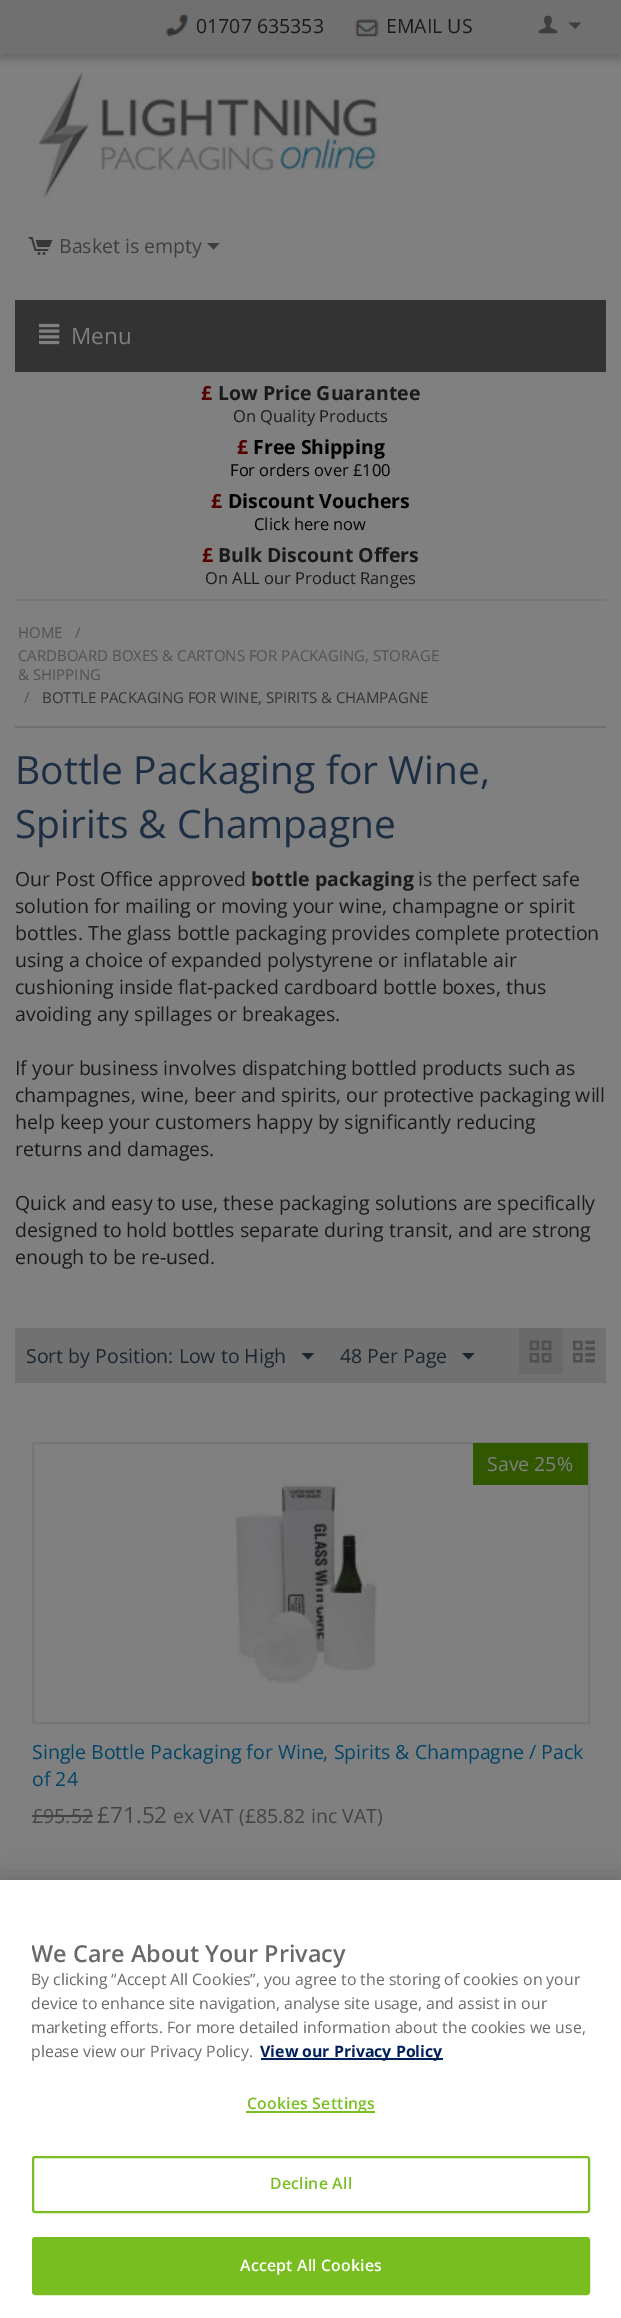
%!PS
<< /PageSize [621 2318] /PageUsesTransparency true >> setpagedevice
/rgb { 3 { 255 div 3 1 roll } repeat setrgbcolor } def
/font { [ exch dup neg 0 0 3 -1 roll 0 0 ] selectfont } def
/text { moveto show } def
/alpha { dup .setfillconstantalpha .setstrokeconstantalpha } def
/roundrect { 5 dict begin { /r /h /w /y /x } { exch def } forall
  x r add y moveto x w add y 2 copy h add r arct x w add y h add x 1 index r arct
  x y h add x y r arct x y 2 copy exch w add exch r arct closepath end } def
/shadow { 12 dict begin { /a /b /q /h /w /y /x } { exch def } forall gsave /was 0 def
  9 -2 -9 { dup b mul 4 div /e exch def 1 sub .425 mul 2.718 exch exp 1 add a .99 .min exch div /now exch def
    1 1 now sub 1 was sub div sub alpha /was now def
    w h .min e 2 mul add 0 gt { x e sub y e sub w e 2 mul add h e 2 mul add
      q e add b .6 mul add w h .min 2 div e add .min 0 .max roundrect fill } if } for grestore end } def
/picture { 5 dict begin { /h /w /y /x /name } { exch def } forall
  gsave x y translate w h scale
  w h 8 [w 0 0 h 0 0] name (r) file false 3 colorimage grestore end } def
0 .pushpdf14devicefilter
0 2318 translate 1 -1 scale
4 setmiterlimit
128 128 128 rgb
0 0 621 2318 rectfill
0 0 0 rgb
0 5 621 54 0 4 0.2 shadow
112 112 112 rgb
0 0 621 54 rectfill
(img_01.rgb) 163 12 25 25 picture
(img_02.rgb) 354 15 25 24 picture
(img_03.rgb) 538 15 20 19 picture
62 62 62 rgb
575 29 moveto -6.5 -6.5 rlineto 12.5 0 rlineto closepath fill
(img_04.rgb) 38 72 342 125 picture
(img_05.rgb) 28 237 25 18 picture
213.5 249.5 moveto -6.5 -6.5 rlineto 12.5 0 rlineto closepath fill
51 51 51 rgb
15 300 591 72 rectfill
(img_06.rgb) 39 323 21 22 picture
119 119 119 rgb
15 599 591 2 rectfill
111 111 111 rgb
15 726 591 2 rectfill
113 113 113 rgb
15 1328 591 55 rectfill
26 37 47 rgb
308 1359.5 moveto -6.5 -6.5 rlineto 12.5 0 rlineto closepath fill
468.5 1359.5 moveto -6.5 -6.5 rlineto 12.5 0 rlineto closepath fill
106 106 106 rgb
519 1328 44 46 rectfill
(img_07.rgb) 529 1340 23 23 picture
(img_08.rgb) 573 1340 22 23 picture
118 118 118 rgb
2 setlinewidth
33 1443 556 280 rectstroke
49 87 0 rgb
473 1443 115 42 rectfill
(img_09.rgb) 235 1482 142 202 picture
68 68 68 rgb
32 1815 61 2 rectfill
0 0 0 rgb
0 1880 621 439 0 13.5 0.2 shadow
255 255 255 rgb
0 1880 621 438 rectfill
0 32 91 rgb
261 2058 182 2 rectfill
120 190 32 rgb
246 2111 129 2 rectfill
33 2157 556 55 2 roundrect stroke
33 2238 556 56 2 roundrect gsave fill grestore
stroke
/OpenSans-Regular 19.5 font
26 26 26 rgb
(01707 635353) 196 33 text
(EMAIL US) 386 33 text
62 62 62 rgb
(Basket is empty) 59 253 text
/OpenSans-Regular 22.5 font
128 128 128 rgb
(Menu) 71 344 text
/OpenSans-Bold 19.5 font
85 0 0 rgb
(£) 201 400 text
26 26 26 rgb
(Low Price Guarantee) 218 400 text
/OpenSans-Regular 16.5 font
(On Quality Products) 233 422 text
/OpenSans-Bold 19.5 font
85 0 0 rgb
(£) 237 454 text
0 0 0 rgb
(Free Shipping) 253 454 text
/OpenSans-Regular 16.5 font
(For orders over £100) 230 476 text
/OpenSans-Bold 19.5 font
85 0 0 rgb
(£) 211 508 text
0 0 0 rgb
(Discount Vouchers) 228 508 text
/OpenSans-Regular 16.5 font
(Click here now) 254 530 text
/OpenSans-Bold 19.5 font
85 0 0 rgb
(£) 202 562 text
26 26 26 rgb
(Bulk Discount Offers) 218 562 text
/OpenSans-Regular 16.5 font
(On ALL our Product Ranges) 205 584 text
/OpenSans-Regular 15 font
81 81 81 rgb
(HOME) 18 638 text
(/) 75 638 text
(CARDBOARD BOXES & CARTONS FOR PACKAGING, STORAGE) 18 661 text
(& SHIPPING) 18 680 text
(/) 24 703 text
51 51 51 rgb
(BOTTLE PACKAGING FOR WINE, SPIRITS & CHAMPAGNE) 42 703 text
/OpenSans-Regular 39 font
29 46 66 rgb
(Bottle Packaging for Wine,) 15 784 text
(Spirits & Champagne) 15 838 text
/OpenSans-Regular 19.5 font
26 26 26 rgb
(Our Post Office approved) 15 886 text
/OpenSans-Bold 19.5 font
(bottle packaging) 251 886 text
/OpenSans-Regular 19.5 font
(is the perfect safe) 418 886 text
(solution for mailing or moving your wine, champagne or spirit) 15 913 text
(bottles. The glass bottle packaging provides complete protection) 15 940 text
(using a choice of expanded polystyrene or inflatable air) 15 967 text
(cushioning inside flat-packed cardboard bottle boxes, thus) 15 994 text
(avoiding any spillages or breakages.) 15 1021 text
(If your business involves dispatching bottled products such as) 15 1075 text
(champagnes, wine, beer and spirits, our protective packaging will) 15 1102 text
(help keep your customers happy by significantly reducing) 15 1129 text
(returns and damages.) 15 1156 text
(Quick and easy to use, these packaging solutions are specifically) 15 1210 text
(designed to hold bottles separate during transit, and are strong) 15 1237 text
(enough to be re-used.) 15 1264 text
26 37 47 rgb
(Sort by Position: Low to High) 26 1363 text
(48 Per Page) 340 1363 text
128 128 128 rgb
(Save 25%) 487 1471 text
0 68 102 rgb
(Single Bottle Packaging for Wine, Spirits & Champagne / Pack) 32 1759 text
(of 24) 32 1786 text
68 68 68 rgb
(£95.52) 32 1823 text
/OpenSans-Regular 22.5 font
(£71.52) 97 1823 text
/OpenSans-Regular 19.5 font
(ex VAT \(£85.82 inc VAT\)) 173 1823 text
gsave
32 1938 558 126 rectclip
/OpenSans-SemiBold 23.4 font
105 105 105 rgb
(We Care About Your Privacy) 31 1962 text
grestore
/OpenSans-Regular 15.85 font
105 105 105 rgb
(By clicking “Accept All Cookies”, you agree to the storing of cookies on your) 31 1985 text
(device to enhance site navigation, analyse site usage, and assist in our) 31 2009 text
(marketing efforts. For more detailed information about the cookies we use,) 31 2033 text
(please view our Privacy Policy.) 31 2057 text
/OpenSans-Bold 15.85 font
0 32 91 rgb
(View our Privacy Policy) 260 2057 text
/OpenSans-SemiBold 15.85 font
120 190 32 rgb
247 2109 moveto 0.2 0 (Cookies Settings) ashow
270 2189 moveto 0.2 0 (Decline All) ashow
255 255 255 rgb
240 2271 moveto 0.2 0 (Accept All Cookies) ashow
.poppdf14devicefilter showpage
